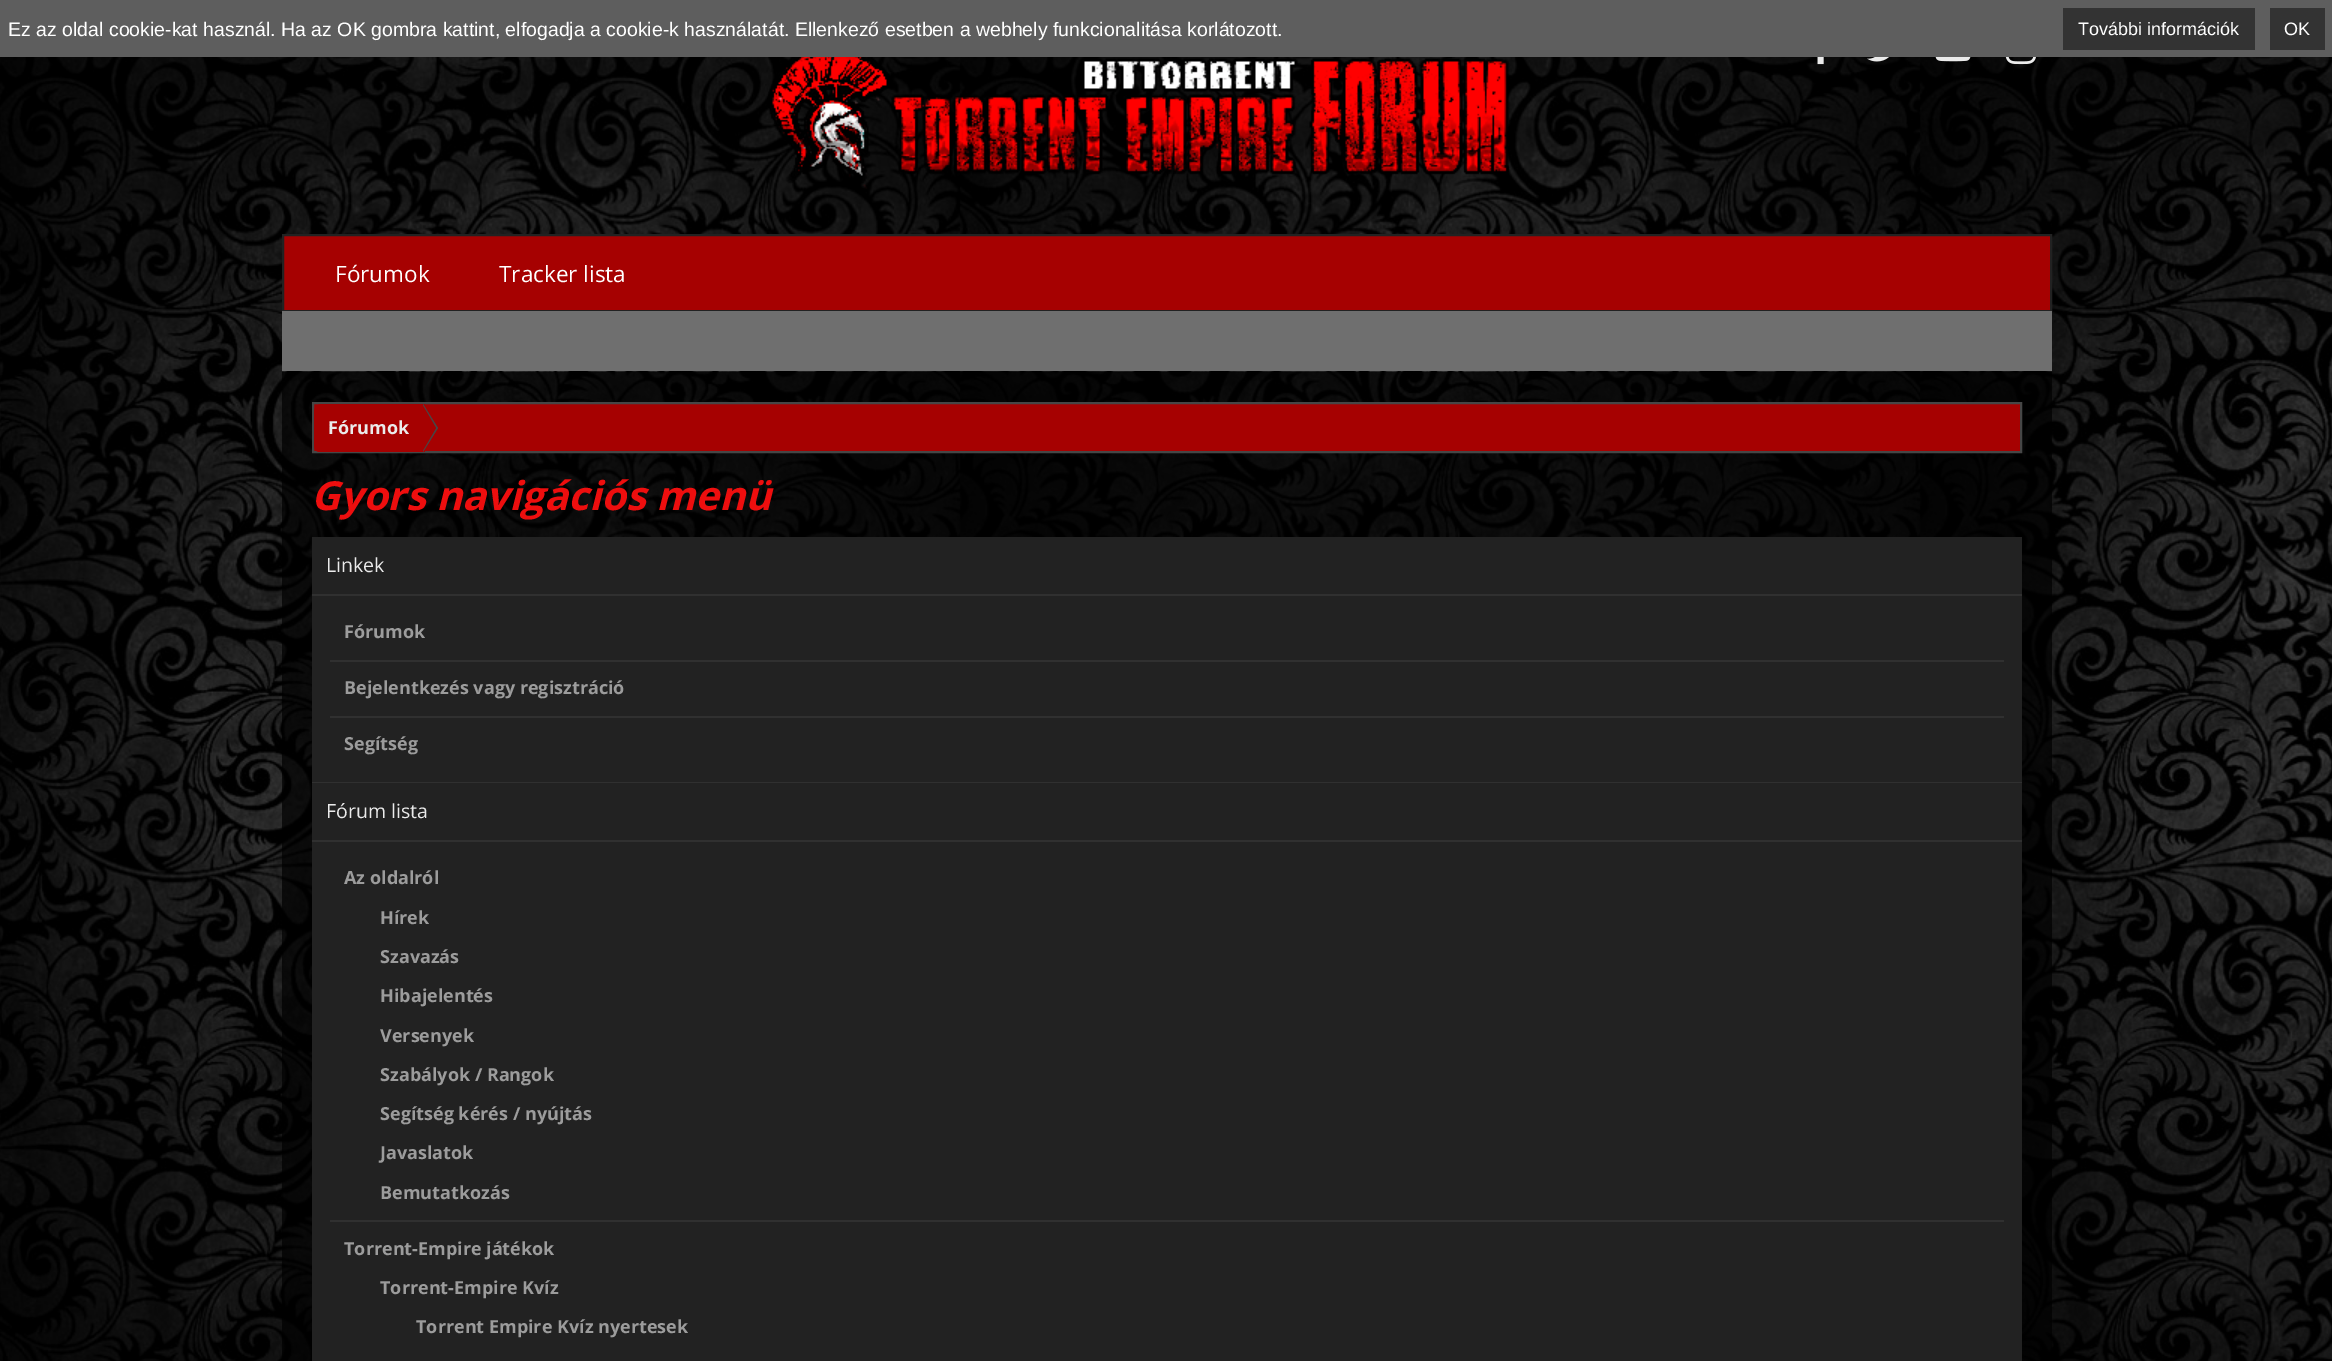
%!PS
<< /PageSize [2332 1361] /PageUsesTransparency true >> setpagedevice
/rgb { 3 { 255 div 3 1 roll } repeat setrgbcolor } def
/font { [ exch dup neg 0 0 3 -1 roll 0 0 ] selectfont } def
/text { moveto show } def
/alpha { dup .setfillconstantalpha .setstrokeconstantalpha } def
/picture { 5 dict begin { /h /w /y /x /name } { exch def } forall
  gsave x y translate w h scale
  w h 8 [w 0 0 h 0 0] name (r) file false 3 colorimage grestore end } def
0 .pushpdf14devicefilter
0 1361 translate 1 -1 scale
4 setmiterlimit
255 255 255 rgb
0 0 2332 1361 rectfill
(img_01.rgb) 0 57 2332 1304 picture
94 94 94 rgb
0 0 2332 57 rectfill
51 51 51 rgb
2063 8 192 42 rectfill
2270 8 55 42 rectfill
(img_02.rgb) 768 57 742 132 picture
(img_03.rgb) 1817 57 7 8 picture
(img_04.rgb) 1867 57 22 5 picture
(img_05.rgb) 1935 57 36 5 picture
(img_06.rgb) 2005 57 31 8 picture
166 1 1 rgb
283 235 moveto 1768 0 rlineto 0 76 rlineto -1768 0 rlineto closepath gsave fill grestore
34 34 34 rgb
2 setlinewidth
stroke
111 111 111 rgb
282 311 1770 60 rectfill
0.7 alpha
0 0 0 rgb
282 372 1770 989 rectfill
1 alpha
166 1 1 rgb
313 403 moveto 1708 0 rlineto 0 49 rlineto -1708 0 rlineto closepath gsave fill grestore
70 70 70 rgb
stroke
gsave
314 404 1707 48 rectclip
166 1 1 rgb
322 404 moveto 103 0 rlineto 0 49 rlineto -103 0 rlineto -4.5 0 -8 -3.5 -8 -8 rcurveto 0 -33 rlineto 0 -4.5 3.5 -8 8 -8 rcurveto closepath fill
grestore
423 452 moveto 0 -48 rlineto 15 24 rlineto closepath fill
166 1 1 rgb
422 452 moveto 0 -48 rlineto 14 24 rlineto closepath fill
34 34 34 rgb
312 537 1710 57 rectfill
48 48 48 rgb
312 594 1710 2 rectfill
34 34 34 rgb
312 596 1710 186 rectfill
48 48 48 rgb
312 782 1710 1 rectfill
330 660 1674 2 rectfill
330 716 1674 2 rectfill
34 34 34 rgb
312 783 1710 57 rectfill
48 48 48 rgb
312 840 1710 2 rectfill
34 34 34 rgb
312 842 1710 519 rectfill
48 48 48 rgb
330 1220 1674 2 rectfill
/LiberationSans-Regular 19.5 font
255 255 255 rgb
(Ez az oldal cookie-kat használ. Ha az OK gombra kattint, elfogadja a cookie-k használatát. Ellenkező esetben a webhely funkcionalitása korlátozott.) 8 36 text
/LiberationSans-Regular 18 font
(További információk) 2078 35 text
(OK) 2284 35 text
/OpenSans-Regular 22.5 font
(Fórumok) 335 282 text
(Tracker lista) 499 282 text
/OpenSans-Bold 18 font
235 235 235 rgb
(Fórumok) 328 434 text
/OpenSans-BoldItalic 40 font
238 14 14 rgb
(Gyors navigációs menü) 311 510 text
/OpenSans-Regular 19.5 font
235 235 235 rgb
(Linkek) 326 572 text
/OpenSans-Bold 18 font
156 156 156 rgb
(Fórumok) 344 638 text
(Bejelentkezés vagy regisztráció) 344 694 text
(Segítség) 344 750 text
/OpenSans-Regular 19.5 font
235 235 235 rgb
(Fórum lista) 326 818 text
/OpenSans-Bold 18 font
156 156 156 rgb
(Az oldalról) 344 884 text
(Hírek) 380 924 text
(Szavazás) 380 963 text
(Hibajelentés) 380 1002 text
(Versenyek) 380 1042 text
(Szabályok / Rangok) 380 1081 text
(Segítség kérés / nyújtás) 380 1120 text
(Javaslatok) 380 1159 text
(Bemutatkozás) 380 1199 text
(Torrent-Empire játékok) 344 1255 text
(Torrent-Empire Kvíz) 380 1294 text
(Torrent Empire Kvíz nyertesek) 416 1333 text
.poppdf14devicefilter showpage
